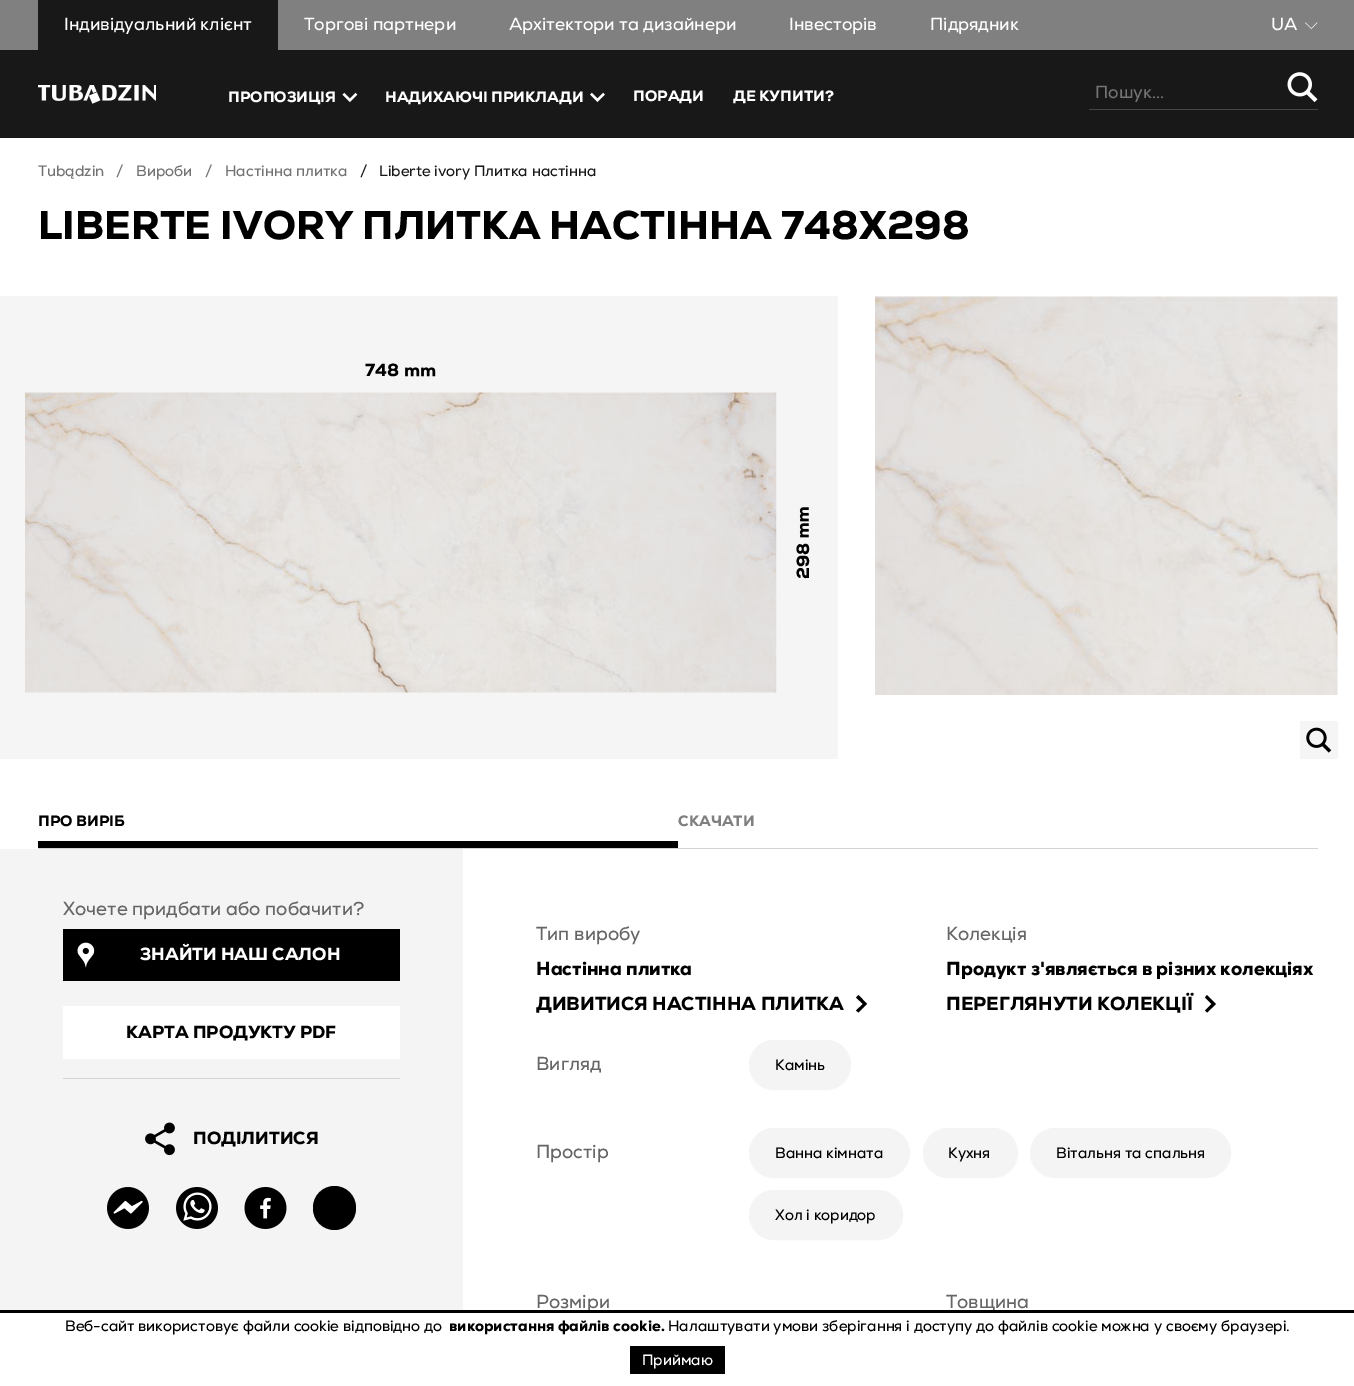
%!PS
<< /PageSize [1354 1386] >> setpagedevice
/rgb { 3 { 255 div 3 1 roll } repeat setrgbcolor } def
/font { [ exch dup neg 0 0 3 -1 roll 0 0 ] selectfont } def
/text { moveto show } def
/roundrect { 5 dict begin { /r /h /w /y /x } { exch def } forall
  x r add y moveto x w add y 2 copy h add r arct x w add y h add x 1 index r arct
  x y h add x y r arct x y 2 copy exch w add exch r arct closepath end } def
/picture { 5 dict begin { /h /w /y /x /name } { exch def } forall
  gsave x y translate w h scale
  w h 8 [w 0 0 h 0 0] name (r) file false 3 colorimage grestore end } def
0 1386 translate 1 -1 scale
4 setmiterlimit
255 255 255 rgb
0 0 1354 1386 rectfill
128 128 128 rgb
0 0 1354 50 rectfill
24 24 24 rgb
38 0 240 50 rectfill
(img_01.rgb) 1305 22 13 7 picture
0 50 1354 88 rectfill
(img_02.rgb) 38 85 118 19 picture
(img_03.rgb) 342 92 16 11 picture
(img_04.rgb) 590 92 15 10 picture
70 70 70 rgb
1089 109 229 1 rectfill
(img_05.rgb) 1287 72 31 31 picture
245 245 245 rgb
0 296 838 463 rectfill
(img_06.rgb) 405 367 31 10 picture
(img_07.rgb) 25 392 752 301 picture
(img_08.rgb) 799 507 10 31 picture
(img_09.rgb) 875 296 463 399 picture
1300 721 38 38 rectfill
(img_10.rgb) 1306 727 26 26 picture
211 211 211 rgb
38 848 1280 1 rectfill
0 0 0 rgb
38 841 640 7 rectfill
244 244 244 rgb
0 849 463 461 rectfill
0 0 0 rgb
63 929 337 52 rectfill
(img_11.rgb) 77 942 18 26 picture
255 255 255 rgb
63 1006 337 53 rectfill
211 211 211 rgb
63 1078 337 1 rectfill
(img_12.rgb) 145 1122 30 34 picture
(img_13.rgb) 107 1187 42 42 picture
(img_14.rgb) 176 1187 42 42 picture
(img_15.rgb) 244 1187 43 42 picture
0 0 0 rgb
313 1186 43 44 21.5 roundrect fill
858.5 995 moveto -2.5 2.5 rlineto 7 6.5 rlineto -7 6.5 rlineto 2.5 2 rlineto 8.5 -8.5 rlineto closepath fill
1207 995 moveto -2 2.5 rlineto 6.5 6.5 rlineto -6.5 6.5 rlineto 2 2 rlineto 9 -8.5 rlineto closepath fill
244 244 244 rgb
749.5 1040.5 101 49 24.5 roundrect gsave fill grestore
stroke
749.5 1128.5 160 49 24.5 roundrect gsave fill grestore
stroke
923.5 1128.5 94 49 24.5 roundrect gsave fill grestore
stroke
1030.5 1128.5 200 49 24.5 roundrect gsave fill grestore
stroke
749.5 1190.5 153 49 24.5 roundrect gsave fill grestore
stroke
0 0 0 rgb
630 1346 95 28 rectfill
/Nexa-Regular 17.5 font
255 255 255 rgb
(Iндивідуальний клієнт) 64 30 text
(Торгові партнери) 304 30 text
(Aрхітектори та дизайнери) 509 30 text
(Iнвесторів) 789 30 text
(Підрядник) 930 30 text
(UA) 1271 30 text
/Nexa-Black 15 font
(ПРОПОЗИЦІЯ) 228 102 text
(НАДИХАЮЧІ ПРИКЛАДИ) 385 102 text
(ПОРАДИ) 633 101 text
(ДЕ КУПИТИ?) 733 101 text
/Nexa-Regular 17.5 font
115 115 115 rgb
(Пошук...) 1095 98 text
/Nexa-Regular 15 font
(Tubądzin) 38 176 text
(/) 116 176 text
(Вироби) 136 176 text
(/) 205 176 text
(Настінна плитка) 225 176 text
24 24 24 rgb
(/) 360 176 text
(Liberte ivory Плитка настінна) 379 176 text
/Nexa-Black 40 font
0 0 0 rgb
(LIBERTE IVORY ПЛИТКА НАСТІННА 748X298) 38 239 text
/Nexa-Black 17.5 font
(748) 365 376 text
gsave 809 579 translate -90 rotate 0 0 moveto (298) show grestore
/Nexa-Black 15 font
(ПРО ВИРІБ) 38 826 text
128 128 128 rgb
(СКАЧАТИ) 678 826 text
/Nexa-Regular 18.75 font
102 102 102 rgb
(Хочете придбати або побачити?) 63 915 text
/Nexa-Black 17.5 font
255 255 255 rgb
(ЗНАЙТИ НАШ САЛОН) 140 960 text
0 0 0 rgb
(КАРТА ПРОДУКТУ PDF) 126 1038 text
(ПОДІЛИТИСЯ) 193 1144 text
/Nexa-Regular 18.75 font
102 102 102 rgb
(Тип виробу) 536 940 text
/Nexa-Black 18.75 font
0 0 0 rgb
(Настінна плитка) 536 975 text
(ДИВИТИСЯ НАСТІННА ПЛИТКА) 536 1010 text
/Nexa-Regular 18.75 font
102 102 102 rgb
(Колекція) 946 940 text
/Nexa-Black 18.75 font
0 0 0 rgb
(Продукт з'являється в різних колекціях) 946 975 text
(ПЕРЕГЛЯНУТИ КОЛЕКЦІЇ) 946 1010 text
/Nexa-Regular 18.75 font
102 102 102 rgb
(Вигляд) 536 1070 text
/Nexa-Regular 15 font
0 0 0 rgb
(Камінь) 775 1070 text
/Nexa-Regular 18.75 font
102 102 102 rgb
(Простір) 536 1158 text
/Nexa-Regular 15 font
0 0 0 rgb
(Ванна кімната) 775 1158 text
(Кухня) 948 1158 text
(Вітальня та спальня) 1056 1158 text
(Хол і коридор) 775 1220 text
/Nexa-Regular 18.75 font
102 102 102 rgb
(Розміри) 536 1308 text
(Товщина) 946 1308 text
0 0 0 rgb
0 1310 1354 3 rectfill
/Nexa-Regular 15 font
(Веб-сайт використовує файли cookie відповідно до) 65 1331 text
/Nexa-Black 15 font
(використання файлів cookie.) 449 1331 text
/Nexa-Regular 15 font
(Налаштувати умови зберігання і доступу до файлів cookie можна у своєму браузері.) 668 1331 text
255 255 255 rgb
(Приймаю) 642 1365 text
showpage
